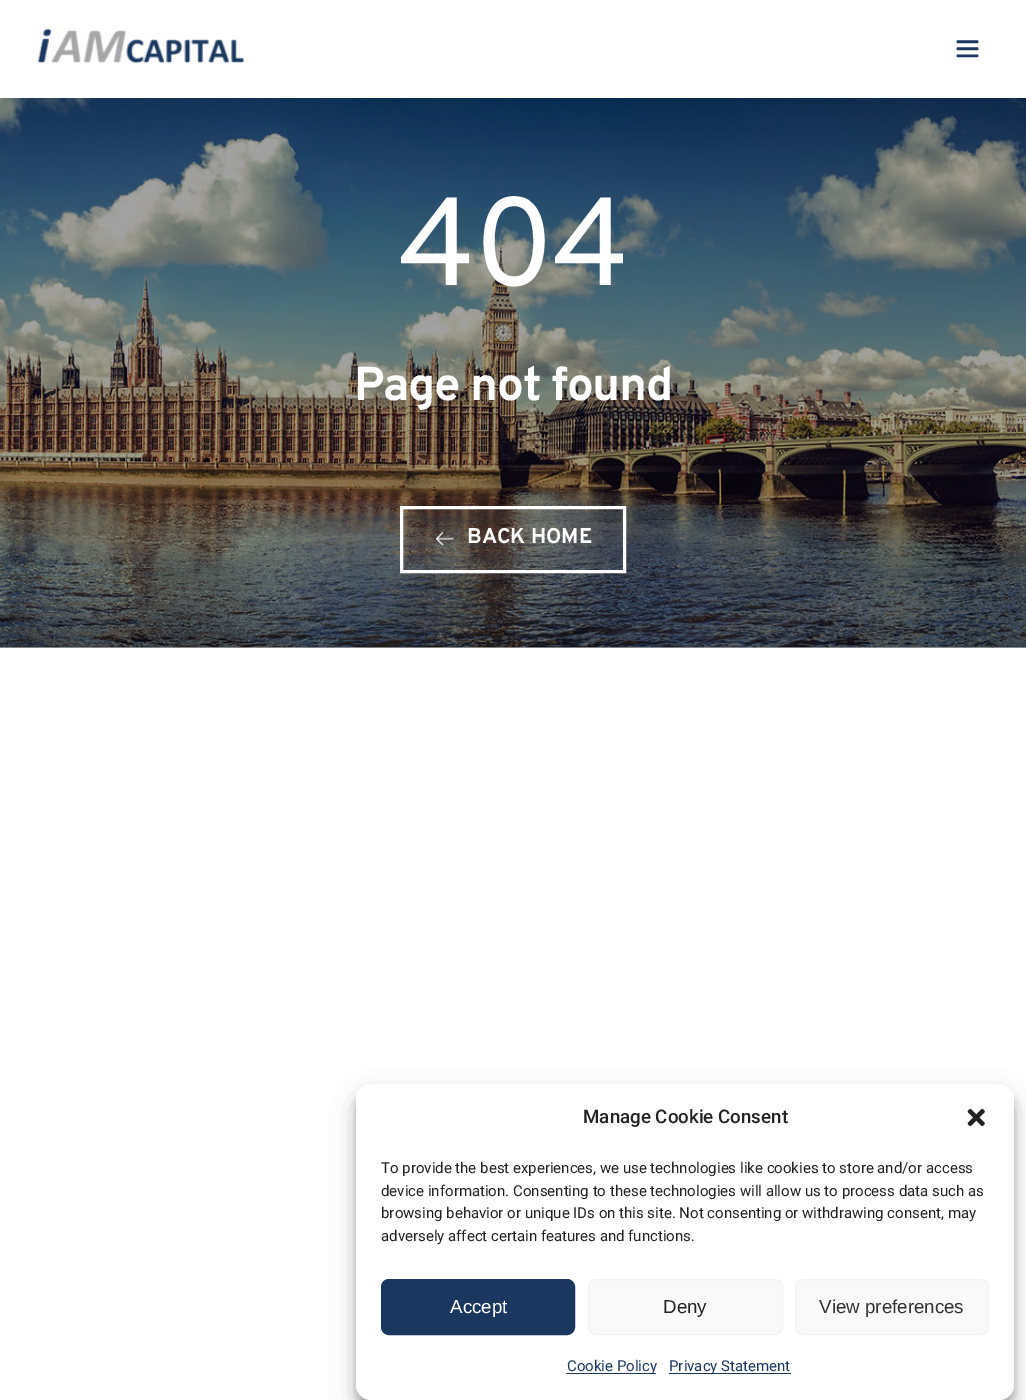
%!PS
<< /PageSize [1026 1400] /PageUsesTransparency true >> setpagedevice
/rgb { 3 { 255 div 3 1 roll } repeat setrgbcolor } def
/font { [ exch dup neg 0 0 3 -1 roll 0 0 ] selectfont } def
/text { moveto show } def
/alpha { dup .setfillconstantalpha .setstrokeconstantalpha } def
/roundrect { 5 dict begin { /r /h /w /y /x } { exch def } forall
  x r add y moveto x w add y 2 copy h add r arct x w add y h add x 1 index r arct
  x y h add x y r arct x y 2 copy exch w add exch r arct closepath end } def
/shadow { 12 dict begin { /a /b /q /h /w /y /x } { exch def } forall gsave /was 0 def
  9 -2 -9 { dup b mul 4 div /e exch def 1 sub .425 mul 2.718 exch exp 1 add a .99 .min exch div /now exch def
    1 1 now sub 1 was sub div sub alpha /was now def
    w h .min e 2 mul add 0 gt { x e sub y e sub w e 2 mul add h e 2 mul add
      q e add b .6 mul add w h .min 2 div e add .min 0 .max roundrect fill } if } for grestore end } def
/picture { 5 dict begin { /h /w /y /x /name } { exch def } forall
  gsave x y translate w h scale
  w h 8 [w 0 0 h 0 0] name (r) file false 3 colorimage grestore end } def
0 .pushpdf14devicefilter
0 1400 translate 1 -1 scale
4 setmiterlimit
255 255 255 rgb
0 0 1026 1400 rectfill
161 161 161 rgb
0 647 1026 1 rectfill
(img_01.rgb) 37 28 207 36 picture
(img_02.rgb) 956 40 23 18 picture
(img_03.rgb) 0 98 1026 550 picture
0.03 alpha
255 255 255 rgb
401.5 507.5 moveto 223 0 rlineto 0 64 rlineto -223 0 rlineto closepath fill
1 alpha
3 setlinewidth
401.5 507.5 moveto 223 0 rlineto 0 64 rlineto -223 0 rlineto closepath stroke
(img_04.rgb) 436 531 18 15 picture
0 0 0 rgb
356 1091 658 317 15 4 0.23 shadow
356 1096 658 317 15 12.5 0.19 shadow
255 255 255 rgb
356 1084 658 316 15 roundrect fill
(img_05.rgb) 967 1108 18 19 picture
25 55 95 rgb
381.5 1279.5 193 55 7.5 roundrect gsave fill grestore
1 setlinewidth
stroke
249 249 249 rgb
588.5 1279.5 194 55 7.5 roundrect gsave fill grestore
242 242 242 rgb
stroke
249 249 249 rgb
795.5 1279.5 193 55 7.5 roundrect gsave fill grestore
242 242 242 rgb
stroke
25 55 95 rgb
566 1373 90 1 rectfill
669 1373 122 1 rectfill
/Overpass-Regular 125 font
255 255 255 rgb
398 285 moveto -2 0 (404) ashow
/Overpass-Bold 47.5 font
354 400 moveto -1.25 0 (Page not found) ashow
/Overpass-Bold 21.25 font
(BACK HOME) 467 543 text
/Roboto-Medium 18.75 font
34 34 34 rgb
(Manage Cookie Consent) 583 1123 text
/Roboto-Regular 15 font
(To provide the best experiences, we use technologies like cookies to store and/or access) 381 1173 text
(device information. Consenting to these technologies will allow us to process data such as) 381 1196 text
(browsing behavior or unique IDs on this site. Not consenting or withdrawing consent, may) 381 1218 text
(adversely affect certain features and functions.) 381 1241 text
/LiberationSans-Regular 18.75 font
255 255 255 rgb
(Accept) 450 1313 text
34 34 34 rgb
(Deny) 663 1313 text
51 51 51 rgb
(View preferences) 819 1313 text
/Roboto-Regular 15 font
25 55 95 rgb
(Cookie Policy) 567 1371 text
(Privacy Statement) 669 1371 text
.poppdf14devicefilter showpage
